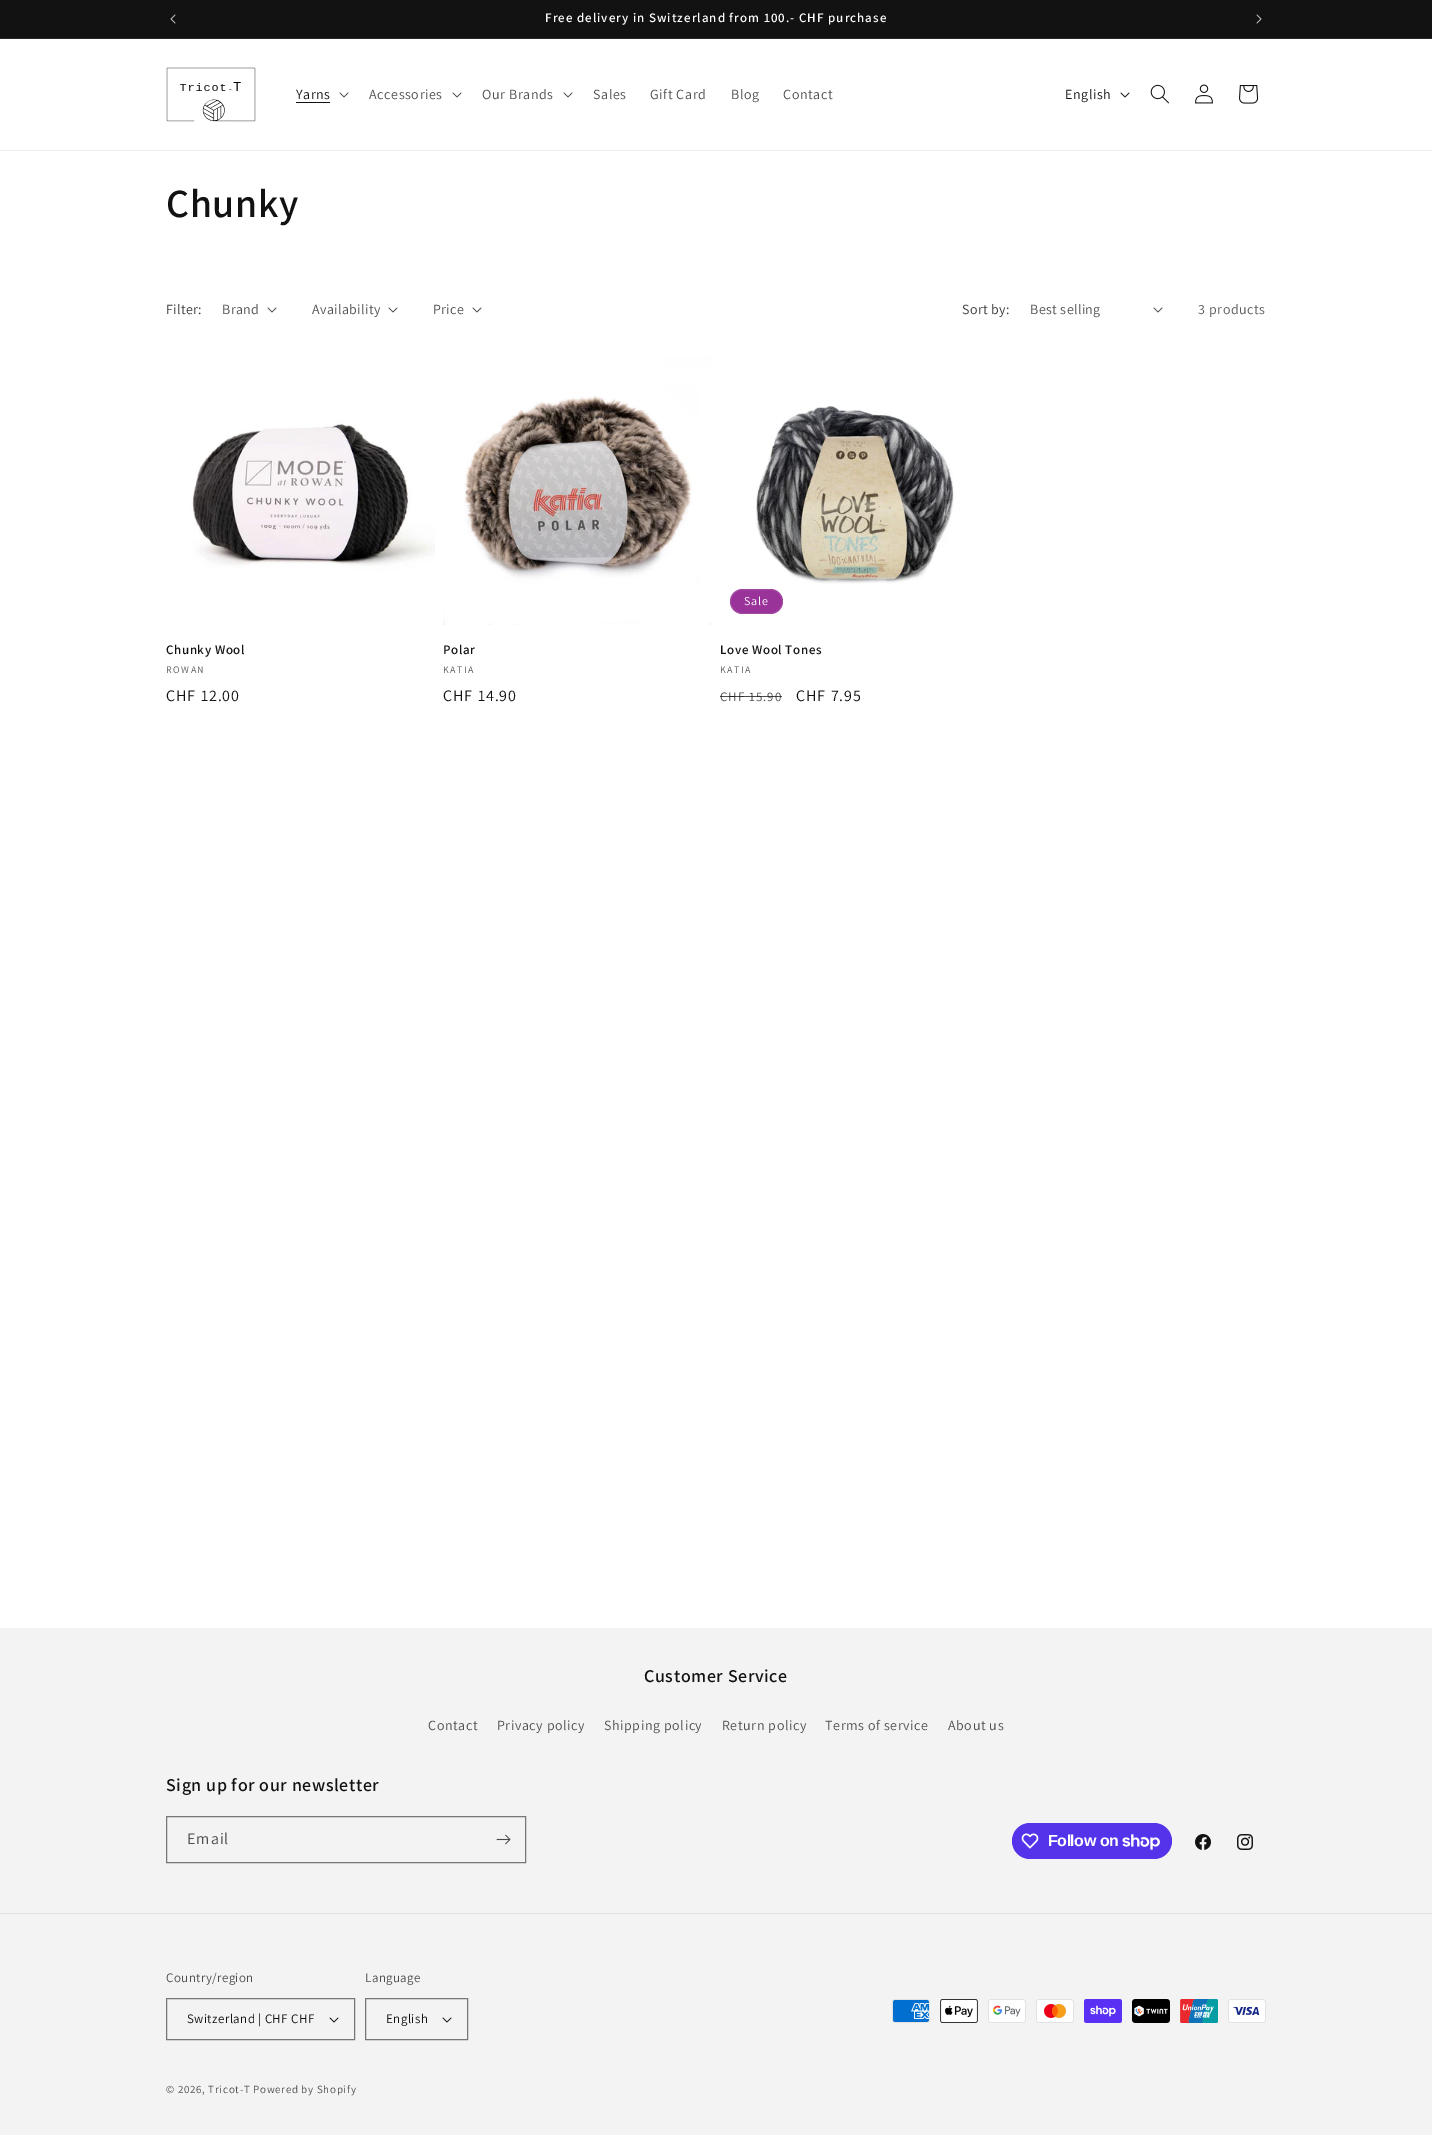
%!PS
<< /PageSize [1432 2135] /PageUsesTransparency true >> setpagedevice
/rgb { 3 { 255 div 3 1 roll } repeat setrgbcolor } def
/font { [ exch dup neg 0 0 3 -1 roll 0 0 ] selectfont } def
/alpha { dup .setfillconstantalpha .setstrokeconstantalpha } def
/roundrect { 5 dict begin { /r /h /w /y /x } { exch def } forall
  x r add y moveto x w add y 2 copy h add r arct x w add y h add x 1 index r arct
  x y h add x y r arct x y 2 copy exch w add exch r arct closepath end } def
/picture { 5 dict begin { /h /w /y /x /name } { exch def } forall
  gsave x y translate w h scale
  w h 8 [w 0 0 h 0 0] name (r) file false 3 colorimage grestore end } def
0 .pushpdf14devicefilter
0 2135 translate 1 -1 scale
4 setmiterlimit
255 255 255 rgb
0 0 1432 2135 rectfill
18 18 18 rgb
0 0 1432 38 rectfill
37 37 37 rgb
0 38 1432 1 rectfill
(img_01.rgb) 170 14 6 10 picture
(img_02.rgb) 1256 14 6 10 picture
236 236 236 rgb
0 150 1432 1 rectfill
(img_03.rgb) 166 67 90 55 picture
18 18 18 rgb
296 102 34 1 rectfill
(img_04.rgb) 339 92 10 6 picture
(img_04.rgb) 452 92 10 6 picture
(img_04.rgb) 563 92 10 6 picture
(img_05.rgb) 1120 92 10 6 picture
(img_06.rgb) 1150 84 19 20 picture
(img_07.rgb) 1195 84 18 20 picture
(img_08.rgb) 1239 85 20 19 picture
(img_04.rgb) 267 307 10 6 picture
(img_04.rgb) 388 307 10 6 picture
(img_04.rgb) 472 307 10 6 picture
(img_04.rgb) 1153 307 10 6 picture
(img_09.rgb) 166 356 269 269 picture
(img_10.rgb) 443 356 269 269 picture
(img_11.rgb) 720 356 269 269 picture
153 51 153 rgb
730 589 53 25 12.5 roundrect fill
0.1 alpha
255 255 255 rgb
730.5 589.5 52 24 12 roundrect stroke
1 alpha
243 243 243 rgb
0 1628 1432 507 rectfill
119 119 119 rgb
166.5 1816.5 359 46 rectstroke
(img_12.rgb) 496 1834 15 11 picture
84 51 235 rgb
1012 1823 160 36 18 roundrect fill
(img_13.rgb) 1021 1833 18 16 picture
(img_14.rgb) 1122 1834 38 16 picture
(img_15.rgb) 1195 1834 16 16 picture
(img_16.rgb) 1237 1834 16 16 picture
225 225 225 rgb
0 1913 1432 1 rectfill
(img_17.rgb) 329 2017 10 6 picture
119 119 119 rgb
166.5 1998.5 188 41 rectstroke
(img_17.rgb) 442 2017 10 6 picture
365.5 1998.5 102 41 rectstroke
(img_18.rgb) 892 1999 38 24 picture
(img_19.rgb) 940 1999 38 24 picture
(img_20.rgb) 988 1999 38 24 picture
(img_21.rgb) 1036 1999 38 24 picture
(img_22.rgb) 1084 1999 38 24 picture
(img_23.rgb) 1132 1999 38 24 picture
(img_24.rgb) 1180 1999 38 24 picture
(img_25.rgb) 1228 1999 38 24 picture
/Assistant-SemiBold 13 font
255 255 255 rgb
545 22 moveto 1 0 (Free delivery in Switzerland from 100.- CHF purchase) ashow
/Assistant-Regular 14 font
18 18 18 rgb
296 99 moveto 0.6 0 (Yarns) ashow
77 77 77 rgb
369 99 moveto 0.6 0 (Accessories) ashow
482 99 moveto 0.6 0 (Our Brands) ashow
593 99 moveto 0.6 0 (Sales) ashow
650 99 moveto 0.6 0 (Gift Card) ashow
731 99 moveto 0.6 0 (Blog) ashow
783 99 moveto 0.6 0 (Contact) ashow
18 18 18 rgb
1065 99 moveto 0.6 0 (English) ashow
/Assistant-SemiBold 40 font
166 217 moveto 0.6 0 (Chunky) ashow
/Assistant-Regular 14 font
54 54 54 rgb
166 314 moveto 0.4 0 (Filter:) ashow
77 77 77 rgb
222 314 moveto 0.4 0 (Brand) ashow
312 314 moveto 0.4 0 (Availability) ashow
433 314 moveto 0.4 0 (Price) ashow
54 54 54 rgb
962 314 moveto 0.4 0 (Sort by:) ashow
77 77 77 rgb
1030 314 moveto 0.4 0 (Best selling) ashow
89 89 89 rgb
1198 314 moveto 0.6 0 (3 products) ashow
/Assistant-SemiBold 13 font
18 18 18 rgb
166 654 moveto 0.6 0 (Chunky Wool) ashow
/Assistant-Regular 10 font
89 89 89 rgb
166 673 moveto 1.5 0 (ROWAN) ashow
/Assistant-Regular 16 font
18 18 18 rgb
166 701 moveto 1 0 (CHF 12.00) ashow
/Assistant-SemiBold 13 font
443 654 moveto 0.6 0 (Polar) ashow
/Assistant-Regular 10 font
89 89 89 rgb
443 673 moveto 1.5 0 (KATIA) ashow
/Assistant-Regular 16 font
18 18 18 rgb
443 701 moveto 1 0 (CHF 14.90) ashow
/Assistant-Regular 12 font
255 255 255 rgb
744 605 moveto 1 0 (Sale) ashow
/Assistant-SemiBold 13 font
18 18 18 rgb
720 654 moveto 0.6 0 (Love Wool Tones) ashow
/Assistant-Regular 10 font
89 89 89 rgb
720 673 moveto 1.5 0 (KATIA) ashow
/Assistant-Regular 13 font
77 77 77 rgb
720 701 moveto 1 0 (CHF 15.90) ashow
0.75 alpha
18 18 18 rgb
720 696 62 1 rectfill
/Assistant-Regular 16 font
1 alpha
796 701 moveto 1 0 (CHF 7.95) ashow
/Assistant-SemiBold 18 font
644 1682 moveto 0.6 0 (Customer Service) ashow
/Assistant-Regular 14 font
77 77 77 rgb
428 1730 moveto 0.6 0 (Contact) ashow
497 1730 moveto 0.6 0 (Privacy policy) ashow
604 1730 moveto 0.6 0 (Shipping policy) ashow
722 1730 moveto 0.6 0 (Return policy) ashow
825 1730 moveto 0.6 0 (Terms of service) ashow
948 1730 moveto 0.6 0 (About us) ashow
/Assistant-SemiBold 18 font
18 18 18 rgb
166 1791 moveto 0.6 0 (Sign up for our newsletter) ashow
/Assistant-Regular 16 font
77 77 77 rgb
187 1844 moveto 1 0 (Email) ashow
/LiberationSans-Bold 16 font
255 255 255 rgb
1048 1846 moveto -0.5 0 (Follow on) ashow
/Assistant-Regular 13 font
77 77 77 rgb
166 1982 moveto 0.4 0 (Country/region) ashow
18 18 18 rgb
187 2023 moveto 0.4 0 (Switzerland | CHF CHF) ashow
77 77 77 rgb
365 1982 moveto 0.4 0 (Language) ashow
18 18 18 rgb
386 2023 moveto 0.4 0 (English) ashow
/Assistant-Regular 11 font
77 77 77 rgb
166 2093 moveto 0.7 0 (© 2026, Tricot-T Powered by Shopify) ashow
.poppdf14devicefilter showpage
